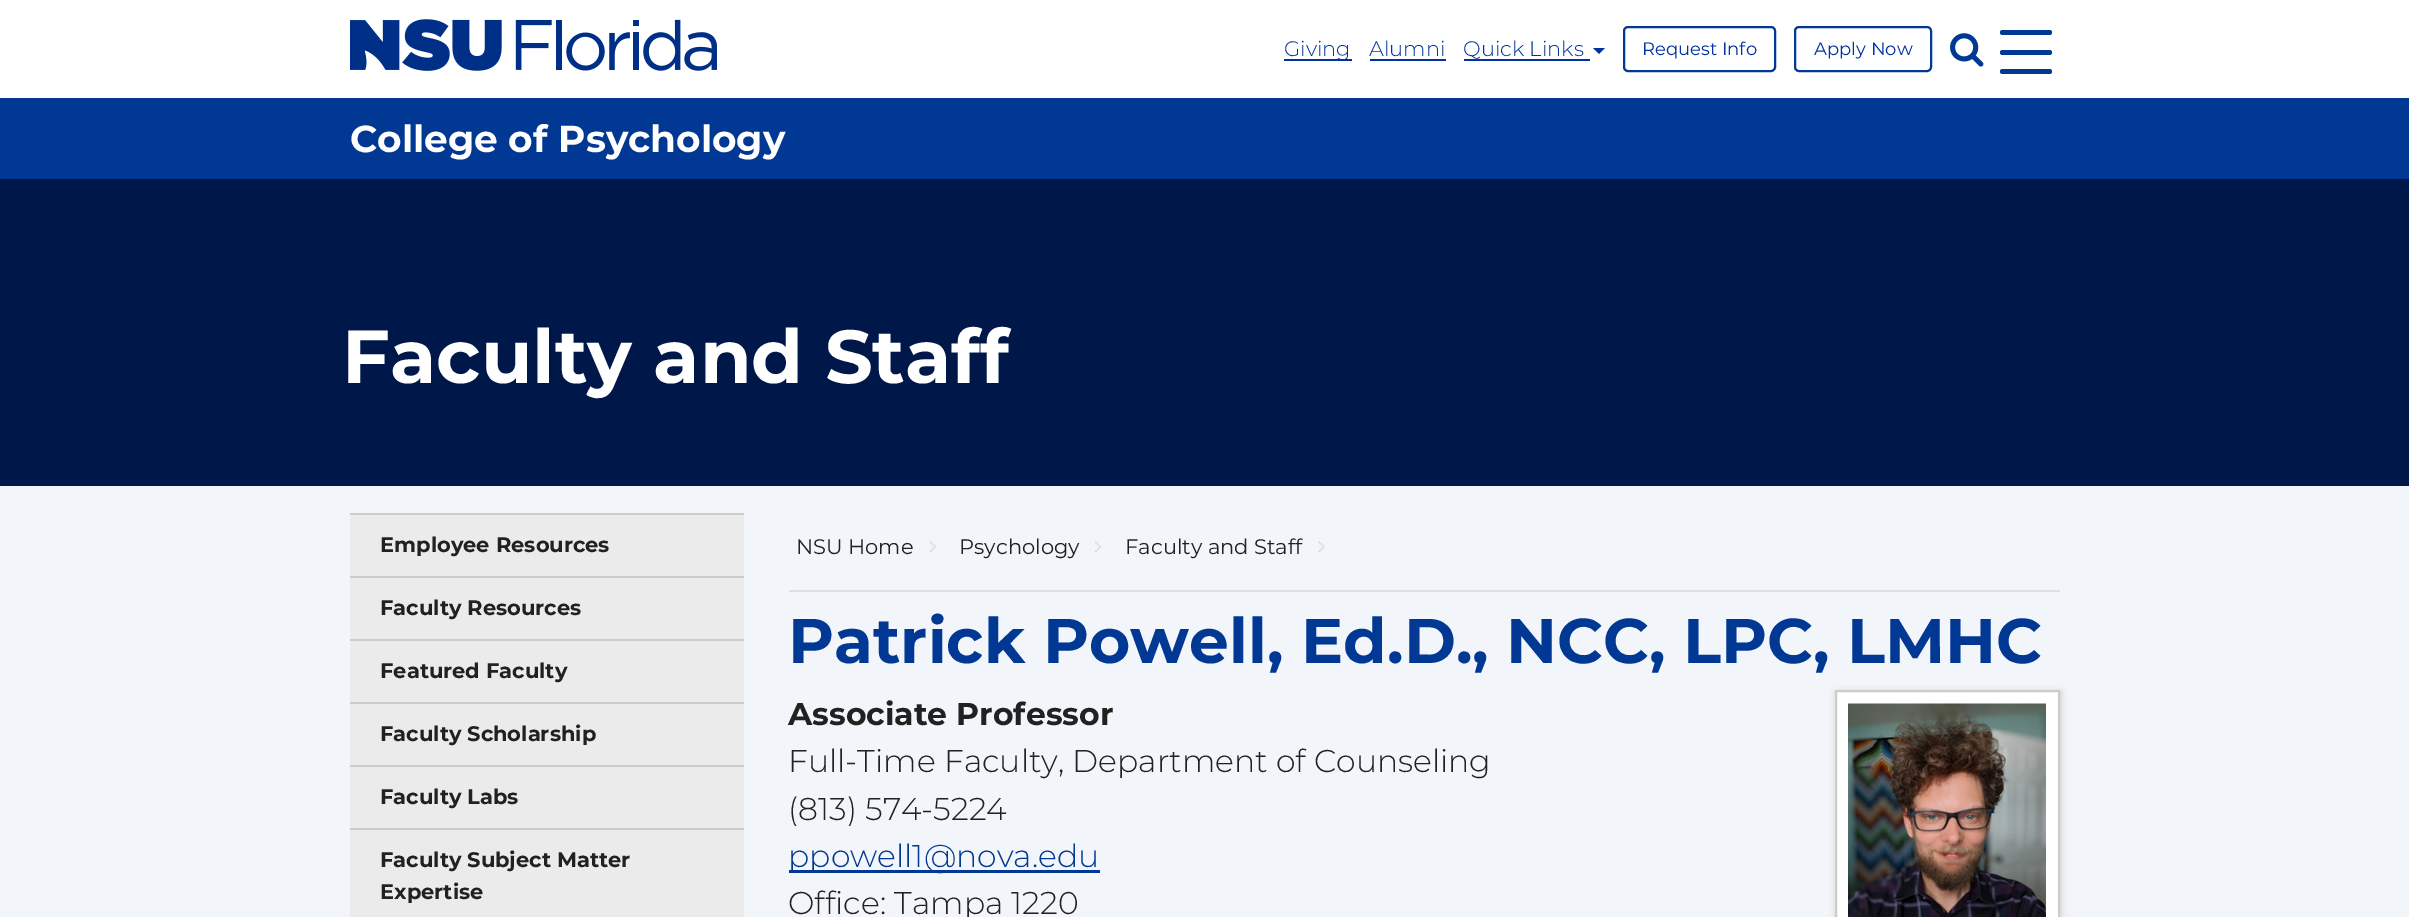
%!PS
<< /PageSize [2409 917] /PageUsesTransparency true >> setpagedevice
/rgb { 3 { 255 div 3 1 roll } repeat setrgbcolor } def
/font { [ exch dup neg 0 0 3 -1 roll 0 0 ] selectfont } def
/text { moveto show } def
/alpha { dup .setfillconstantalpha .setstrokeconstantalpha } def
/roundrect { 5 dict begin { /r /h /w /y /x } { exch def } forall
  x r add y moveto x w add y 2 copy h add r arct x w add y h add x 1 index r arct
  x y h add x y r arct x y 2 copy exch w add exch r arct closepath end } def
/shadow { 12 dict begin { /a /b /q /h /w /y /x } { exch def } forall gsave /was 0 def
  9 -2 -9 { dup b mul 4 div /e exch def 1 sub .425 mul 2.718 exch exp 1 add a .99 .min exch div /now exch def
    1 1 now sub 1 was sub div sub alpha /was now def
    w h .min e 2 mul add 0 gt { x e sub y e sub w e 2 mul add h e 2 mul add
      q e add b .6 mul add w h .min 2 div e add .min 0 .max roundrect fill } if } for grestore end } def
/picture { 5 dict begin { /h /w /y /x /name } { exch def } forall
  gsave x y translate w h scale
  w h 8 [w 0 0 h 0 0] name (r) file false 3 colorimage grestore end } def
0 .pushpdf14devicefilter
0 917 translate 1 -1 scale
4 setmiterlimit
242 245 249 rgb
0 0 2409 917 rectfill
255 255 255 rgb
0 0 2409 98 rectfill
(img_01.rgb) 350 19 367 52 picture
0 50 160 rgb
1284 59 68 2 rectfill
1370 59 76 2 rectfill
1464 59 126 2 rectfill
1593 48 moveto 12 0 rlineto -6 6 rlineto closepath fill
0 56 147 rgb
2 setlinewidth
1624 27 151 44 4 roundrect stroke
1795 27 136 44 4 roundrect stroke
(img_02.rgb) 1950 33 34 34 picture
2000 30 52 5 2.5 roundrect fill
2000 50 52 5 2.5 roundrect fill
2000 69 52 5 2.5 roundrect fill
0 98 2409 81 rectfill
0 23 73 rgb
0 179 2409 307 rectfill
204 204 204 rgb
350 513 394 2 rectfill
235 235 235 rgb
350 515 394 61 rectfill
204 204 204 rgb
350 576 394 2 rectfill
235 235 235 rgb
350 578 394 61 rectfill
204 204 204 rgb
350 639 394 2 rectfill
235 235 235 rgb
350 641 394 61 rectfill
204 204 204 rgb
350 702 394 2 rectfill
235 235 235 rgb
350 704 394 61 rectfill
204 204 204 rgb
350 765 394 2 rectfill
235 235 235 rgb
350 767 394 61 rectfill
204 204 204 rgb
350 828 394 2 rectfill
235 235 235 rgb
350 830 394 87 rectfill
223 223 223 rgb
789 590 1271 2 rectfill
(img_03.rgb) 930 541 6 11 picture
(img_04.rgb) 1095 541 6 11 picture
(img_05.rgb) 1318 541 7 11 picture
204 204 204 rgb
1836 692 225 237 0 4 1 shadow
255 255 255 rgb
1836 691 moveto 223 0 rlineto 0 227 rlineto -223 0 rlineto closepath gsave fill grestore
204 204 204 rgb
stroke
(img_06.rgb) 1848 703 198 214 picture
0 56 147 rgb
789 870 311 3 rectfill
/Montserrat-Light 21 font
0 50 160 rgb
(Giving) 1284 56 text
(Alumni) 1369 56 text
(Quick Links) 1463 56 text
/Montserrat-Regular 18 font
(Request Info) 1642 55 text
(Apply Now) 1814 55 text
/Montserrat-Bold 37.5 font
255 255 255 rgb
(College of Psychology) 350 152 text
/Montserrat-Bold 75 font
(Faculty and Staff) 342 383 text
/Montserrat-Bold 21 font
32 33 33 rgb
(Employee Resources) 380 552 text
(Faculty Resources) 380 615 text
(Featured Faculty) 380 678 text
(Faculty Scholarship) 380 741 text
(Faculty Labs) 380 804 text
(Faculty Subject Matter) 380 867 text
(Expertise) 380 899 text
/Montserrat-Regular 21 font
(NSU Home) 796 554 text
(Psychology) 959 554 text
(Faculty and Staff) 1125 554 text
/Montserrat-Bold 63 font
0 56 147 rgb
(Patrick Powell, Ed.D., NCC, LPC, LMHC) 788 663 text
/Montserrat-Bold 31.5 font
32 33 33 rgb
(Associate Professor) 788 725 text
/Montserrat-Light 31.5 font
(Full-Time Faculty, Department of Counseling) 788 772 text
(\(813\) 574-5224) 788 820 text
0 56 147 rgb
(ppowell1@nova.edu) 788 867 text
32 33 33 rgb
(Office: Tampa 1220) 788 914 text
.poppdf14devicefilter showpage
